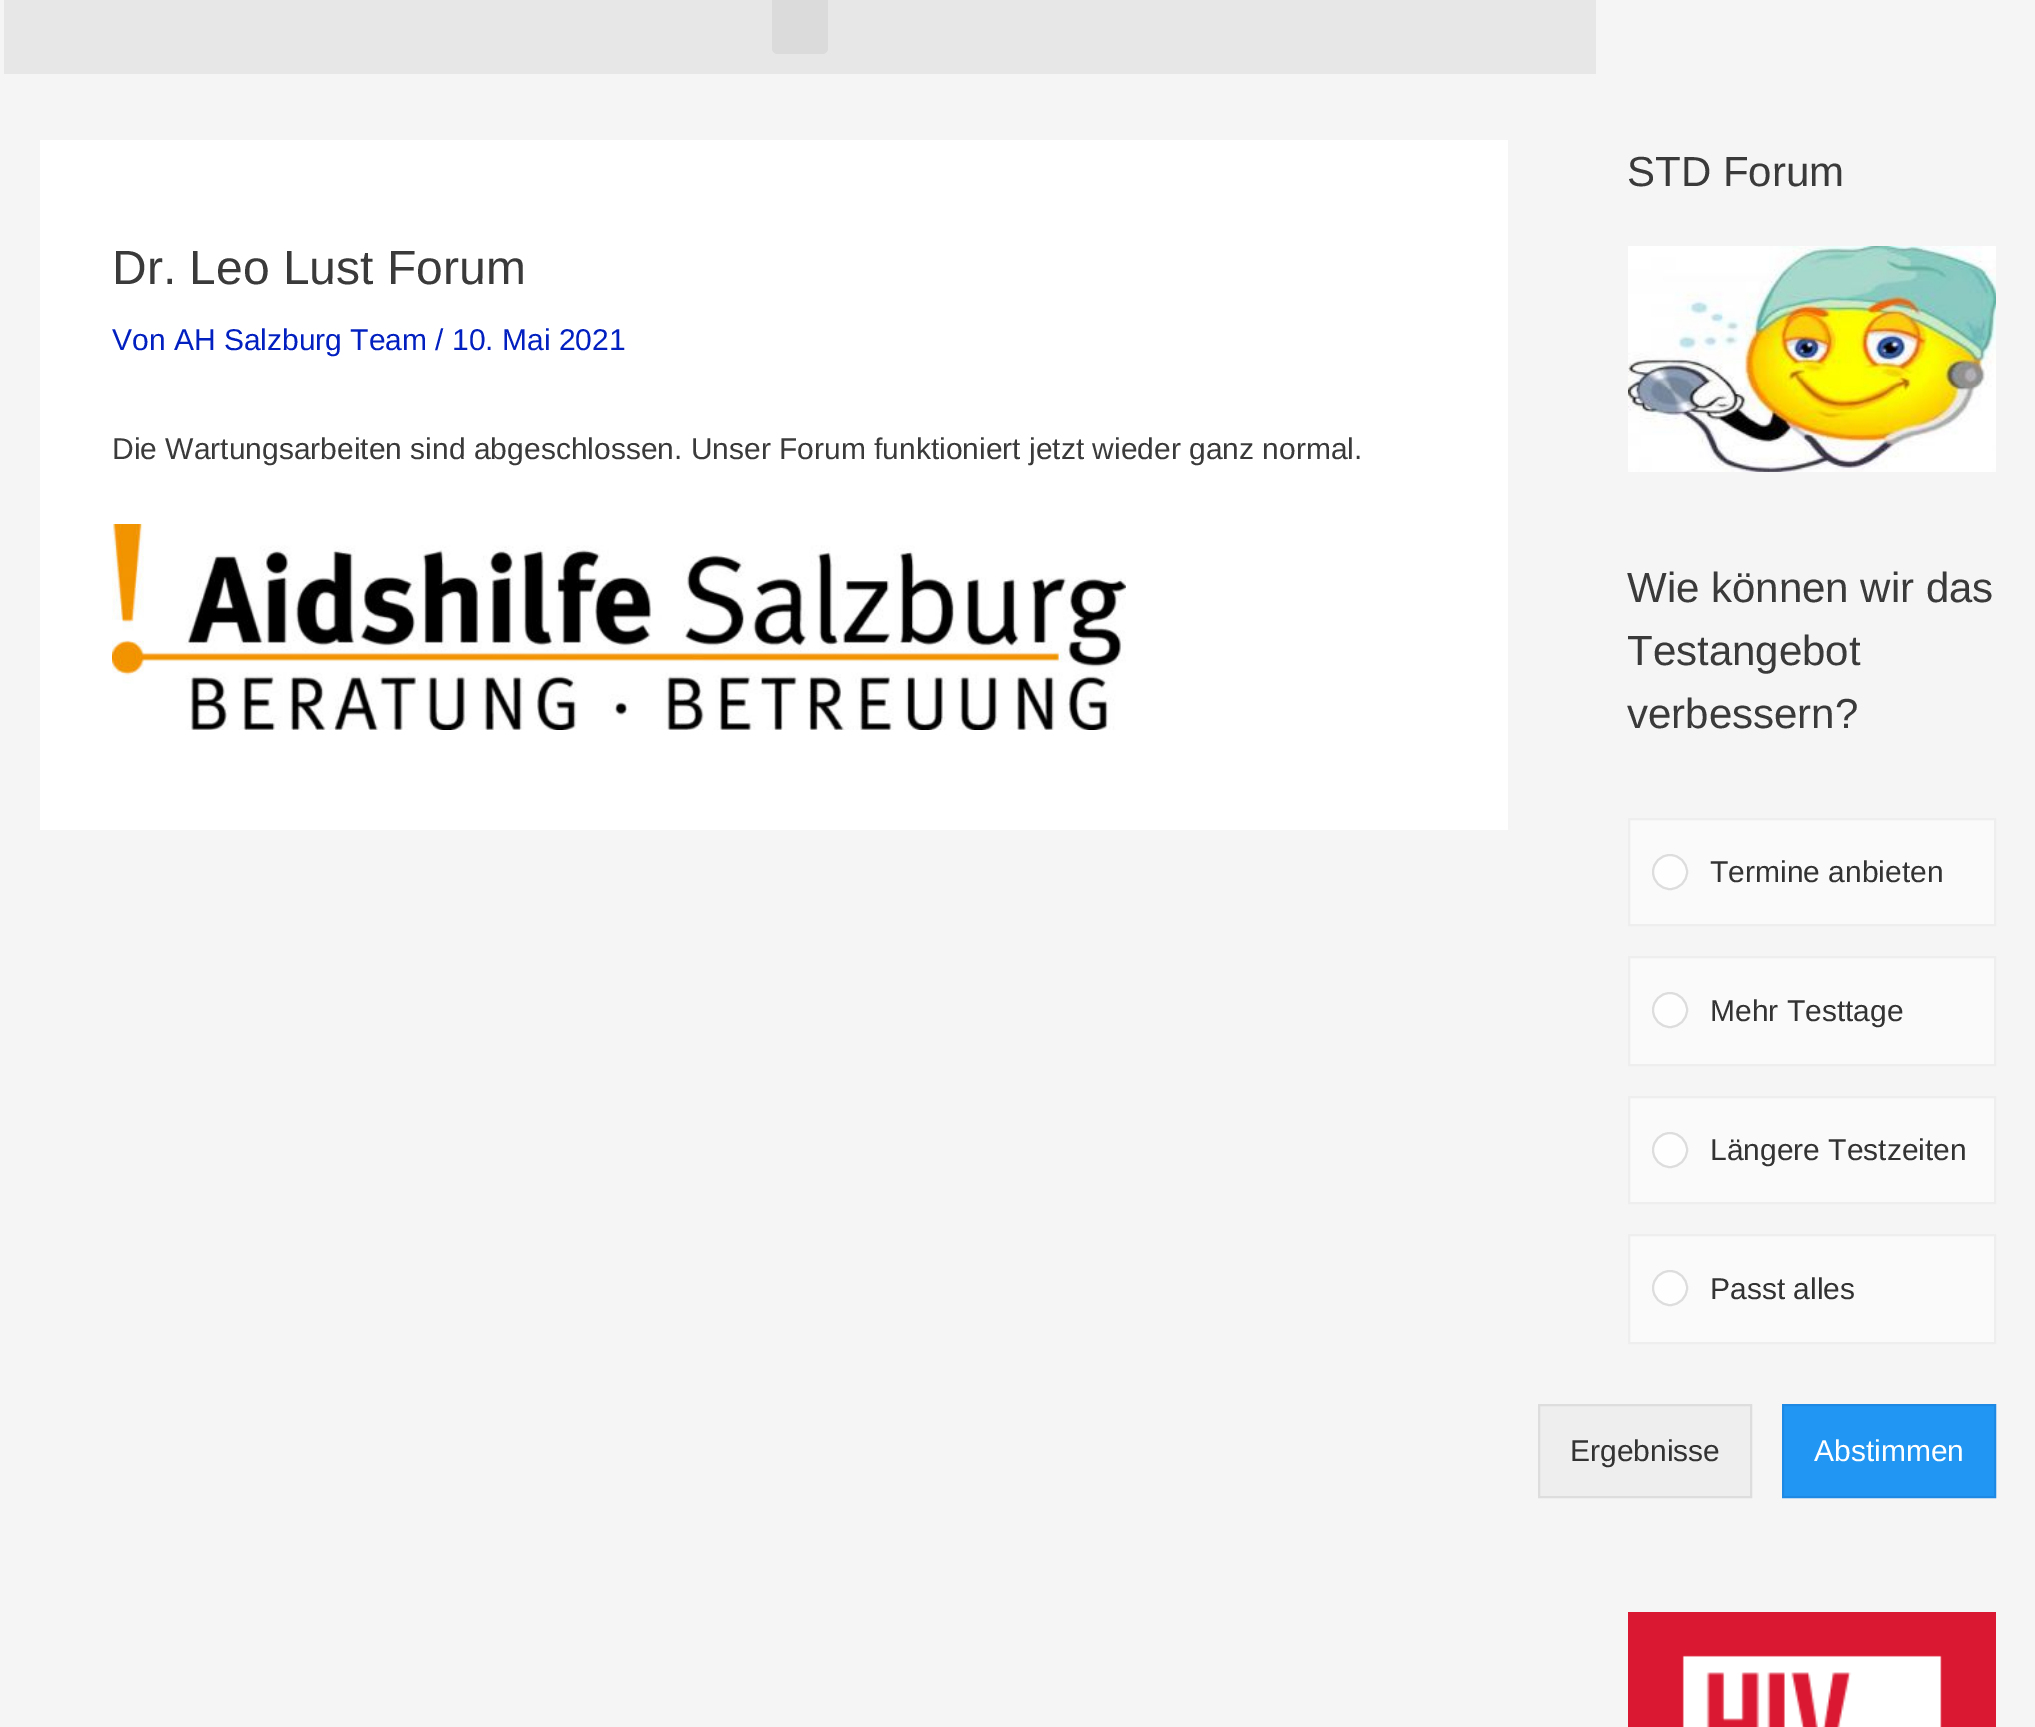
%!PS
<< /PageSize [2035 1727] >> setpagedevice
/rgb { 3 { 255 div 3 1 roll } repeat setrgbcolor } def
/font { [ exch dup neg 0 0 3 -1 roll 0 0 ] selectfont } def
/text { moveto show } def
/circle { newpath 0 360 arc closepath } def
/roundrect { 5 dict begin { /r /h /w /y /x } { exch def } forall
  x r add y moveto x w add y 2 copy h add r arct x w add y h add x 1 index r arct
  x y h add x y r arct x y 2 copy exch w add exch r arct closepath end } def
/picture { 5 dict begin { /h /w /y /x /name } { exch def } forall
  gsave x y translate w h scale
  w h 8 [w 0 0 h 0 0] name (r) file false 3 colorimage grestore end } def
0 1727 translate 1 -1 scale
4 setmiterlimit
245 245 245 rgb
0 0 2035 1727 rectfill
231 231 231 rgb
4 0 1592 74 rectfill
219 219 219 rgb
772 -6 56 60 6 roundrect fill
255 255 255 rgb
40 140 1468 690 rectfill
(img_01.rgb) 112 524 1014 206 picture
(img_02.rgb) 1628 246 368 226 picture
250 250 250 rgb
1629 819 moveto 366 0 rlineto 0 106 rlineto -366 0 rlineto closepath gsave fill grestore
238 238 238 rgb
2 setlinewidth
stroke
254 254 254 rgb
1670 872 17 circle gsave fill grestore
221 221 221 rgb
stroke
250 250 250 rgb
1629 957 moveto 366 0 rlineto 0 108 rlineto -366 0 rlineto closepath gsave fill grestore
238 238 238 rgb
stroke
254 254 254 rgb
1670 1010 17 circle gsave fill grestore
221 221 221 rgb
stroke
250 250 250 rgb
1629 1097 moveto 366 0 rlineto 0 106 rlineto -366 0 rlineto closepath gsave fill grestore
238 238 238 rgb
stroke
254 254 254 rgb
1670 1150 17 circle gsave fill grestore
221 221 221 rgb
stroke
250 250 250 rgb
1629 1235 moveto 366 0 rlineto 0 108 rlineto -366 0 rlineto closepath gsave fill grestore
238 238 238 rgb
stroke
254 254 254 rgb
1670 1288 17 circle gsave fill grestore
221 221 221 rgb
stroke
238 238 238 rgb
1539 1405 moveto 212 0 rlineto 0 92 rlineto -212 0 rlineto closepath gsave fill grestore
221 221 221 rgb
stroke
33 150 243 rgb
1783 1405 moveto 212 0 rlineto 0 92 rlineto -212 0 rlineto closepath gsave fill grestore
30 136 229 rgb
stroke
(img_03.rgb) 1628 1612 368 115 picture
/LiberationSans-Regular 48 font
58 58 58 rgb
(Dr. Leo Lust Forum) 112 284 text
/LiberationSans-Regular 30 font
2 32 192 rgb
(Von AH Salzburg Team / 10. Mai 2021) 112 350 text
58 58 58 rgb
(Die Wartungsarbeiten sind abgeschlossen. Unser Forum funktioniert jetzt wieder ganz normal.) 112 459 text
/LiberationSans-Regular 42 font
(STD Forum) 1627 186 text
(Wie können wir das) 1627 602 text
(Testangebot) 1627 665 text
(verbessern?) 1627 728 text
/LiberationSans-Regular 30 font
51 51 51 rgb
(Termine anbieten) 1710 882 text
(Mehr Testtage) 1710 1021 text
(Längere Testzeiten) 1710 1160 text
(Passt alles) 1710 1299 text
(Ergebnisse) 1570 1461 text
255 255 255 rgb
(Abstimmen) 1814 1461 text
showpage
